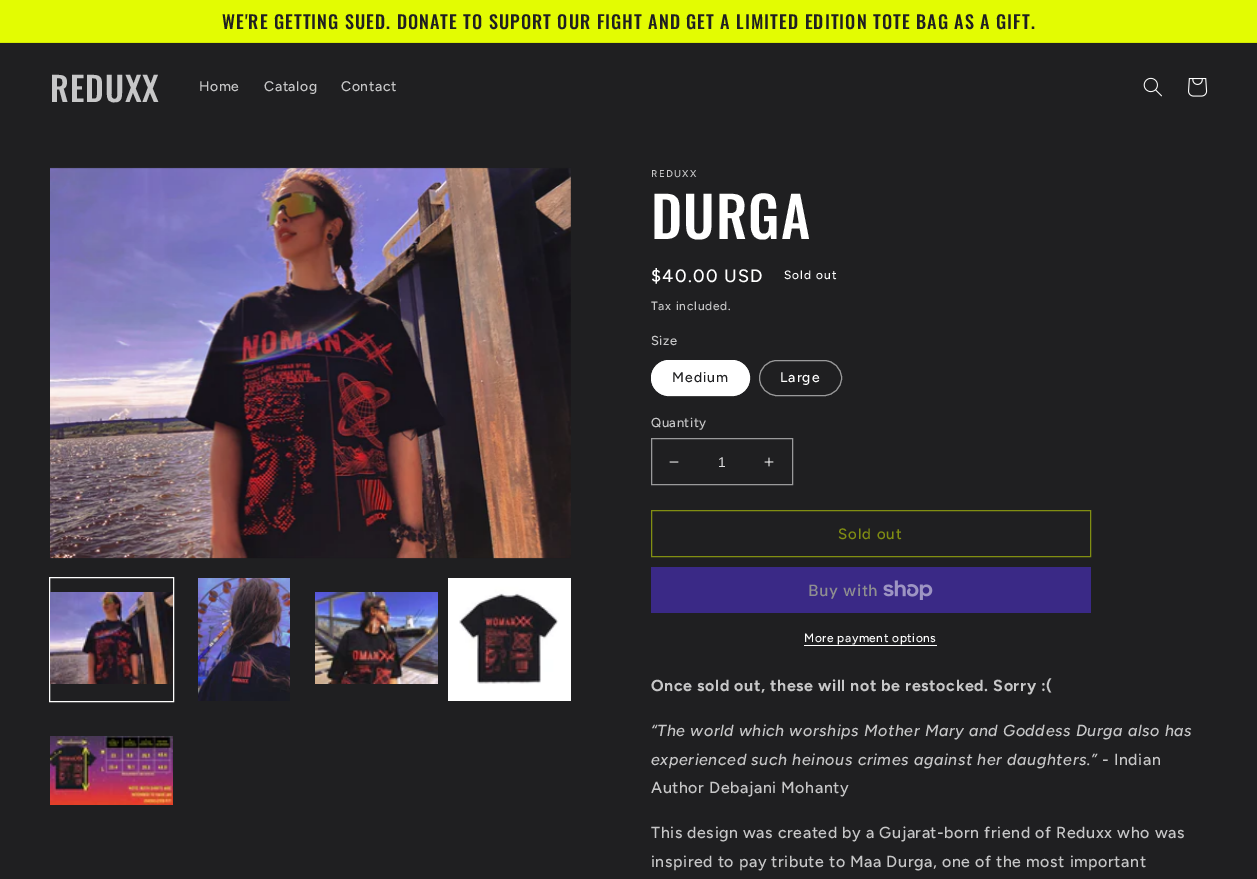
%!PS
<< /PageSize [1257 879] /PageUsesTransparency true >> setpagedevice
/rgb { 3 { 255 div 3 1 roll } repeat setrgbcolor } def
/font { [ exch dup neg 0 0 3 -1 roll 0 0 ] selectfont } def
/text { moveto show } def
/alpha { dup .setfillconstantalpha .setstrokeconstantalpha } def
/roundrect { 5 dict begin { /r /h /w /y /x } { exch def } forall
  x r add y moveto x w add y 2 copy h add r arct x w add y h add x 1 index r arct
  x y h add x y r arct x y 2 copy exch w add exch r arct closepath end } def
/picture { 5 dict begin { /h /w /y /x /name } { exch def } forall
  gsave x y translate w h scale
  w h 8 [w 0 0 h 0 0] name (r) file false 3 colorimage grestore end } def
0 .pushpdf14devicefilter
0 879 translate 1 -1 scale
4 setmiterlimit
31 31 33 rgb
0 0 1257 879 rectfill
227 252 2 rgb
0 0 1257 42 rectfill
211 234 4 rgb
0 42 1257 1 rectfill
(img_01.rgb) 1143 77 19 20 picture
(img_02.rgb) 1188 78 20 19 picture
(img_03.rgb) 50 167 521 392 picture
255 255 255 rgb
49.5 577.5 124 124 rectstroke
(img_04.rgb) 50 592 123 92 picture
(img_05.rgb) 198 578 92 123 picture
(img_06.rgb) 315 592 123 92 picture
(img_07.rgb) 448 578 123 123 picture
(img_08.rgb) 50 736 123 69 picture
651 360 99 36 18 roundrect fill
0.55 alpha
651.5 360.5 98 35 17.5 roundrect stroke
1 alpha
154 154 155 rgb
759.5 360.5 82 35 17.5 roundrect stroke
(img_09.rgb) 669 461 10 2 picture
(img_10.rgb) 764 457 10 10 picture
651.5 438.5 141 46 rectstroke
129 142 18 rgb
651.5 510.5 439 46 rectstroke
58 41 134 rgb
651 567 440 46 rectfill
(img_11.rgb) 883 580 50 20 picture
255 255 255 rgb
804 645 133 1 rectfill
/Oswald-Medium 18.2 font
31 31 33 rgb
222 29 moveto 1 0 (WE'RE GETTING SUED. DONATE TO SUPORT OUR FIGHT AND GET A LIMITED EDITION TOTE BAG AS A GIFT.) ashow
/Oswald-Medium 33.5 font
199 199 200 rgb
50 102 moveto 1 0 (REDUXX) ashow
/Figtree-Medium 14 font
199 91 moveto 0.6 0 (Home) ashow
264 91 moveto 0.6 0 (Catalog) ashow
341 91 moveto 0.6 0 (Contact) ashow
/Figtree-Medium 10 font
651 177 moveto 1.25 0 (REDUXX) ashow
/Oswald-Medium 56 font
255 255 255 rgb
651 239 moveto 1 0 (DURGA) ashow
/Figtree-Medium 18 font
651 282 moveto 1.25 0 ($40.00 USD) ashow
/Figtree-Medium 12 font
784 279 moveto 1 0 (Sold out) ashow
199 199 200 rgb
651 310 moveto 0.75 0 (Tax included.) ashow
/Figtree-Medium 13 font
651 345 moveto 0.5 0 (Size) ashow
/Figtree-Medium 14 font
31 31 33 rgb
672 382 moveto 1 0 (Medium) ashow
255 255 255 rgb
780 382 moveto 1 0 (Large) ashow
/Figtree-Medium 13 font
199 199 200 rgb
651 427 moveto 0.5 0 (Quantity) ashow
/LiberationSans-Regular 14 font
221 221 222 rgb
(1) 718 467 text
/Figtree-Medium 15 font
129 142 18 rgb
838 539 moveto 1 0 (Sold out) ashow
/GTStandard-Medium 16 font
143 143 144 rgb
808 596 moveto 0.6 0 (Buy with) ashow
/Figtree-Medium 12 font
255 255 255 rgb
804 642 moveto 0.5 0 (More payment options) ashow
/Figtree-Bold 16 font
199 199 200 rgb
651 691 moveto 0.6 0 (Once sold out, these will not be restocked. Sorry :\() ashow
/Figtree-MediumItalic 16 font
651 736 moveto 0.6 0 (“The world which worships Mother Mary and Goddess Durga also has) ashow
651 765 moveto 0.6 0 (experienced such heinous crimes against her daughters.”) ashow
/Figtree-Medium 16 font
1102 765 moveto 0.6 0 (- Indian) ashow
651 793 moveto 0.6 0 (Author Debajani Mohanty) ashow
651 838 moveto 0.6 0 (This design was created by a Gujarat-born friend of Reduxx who was) ashow
651 867 moveto 0.6 0 (inspired to pay tribute to Maa Durga, one of the most important) ashow
.poppdf14devicefilter showpage
